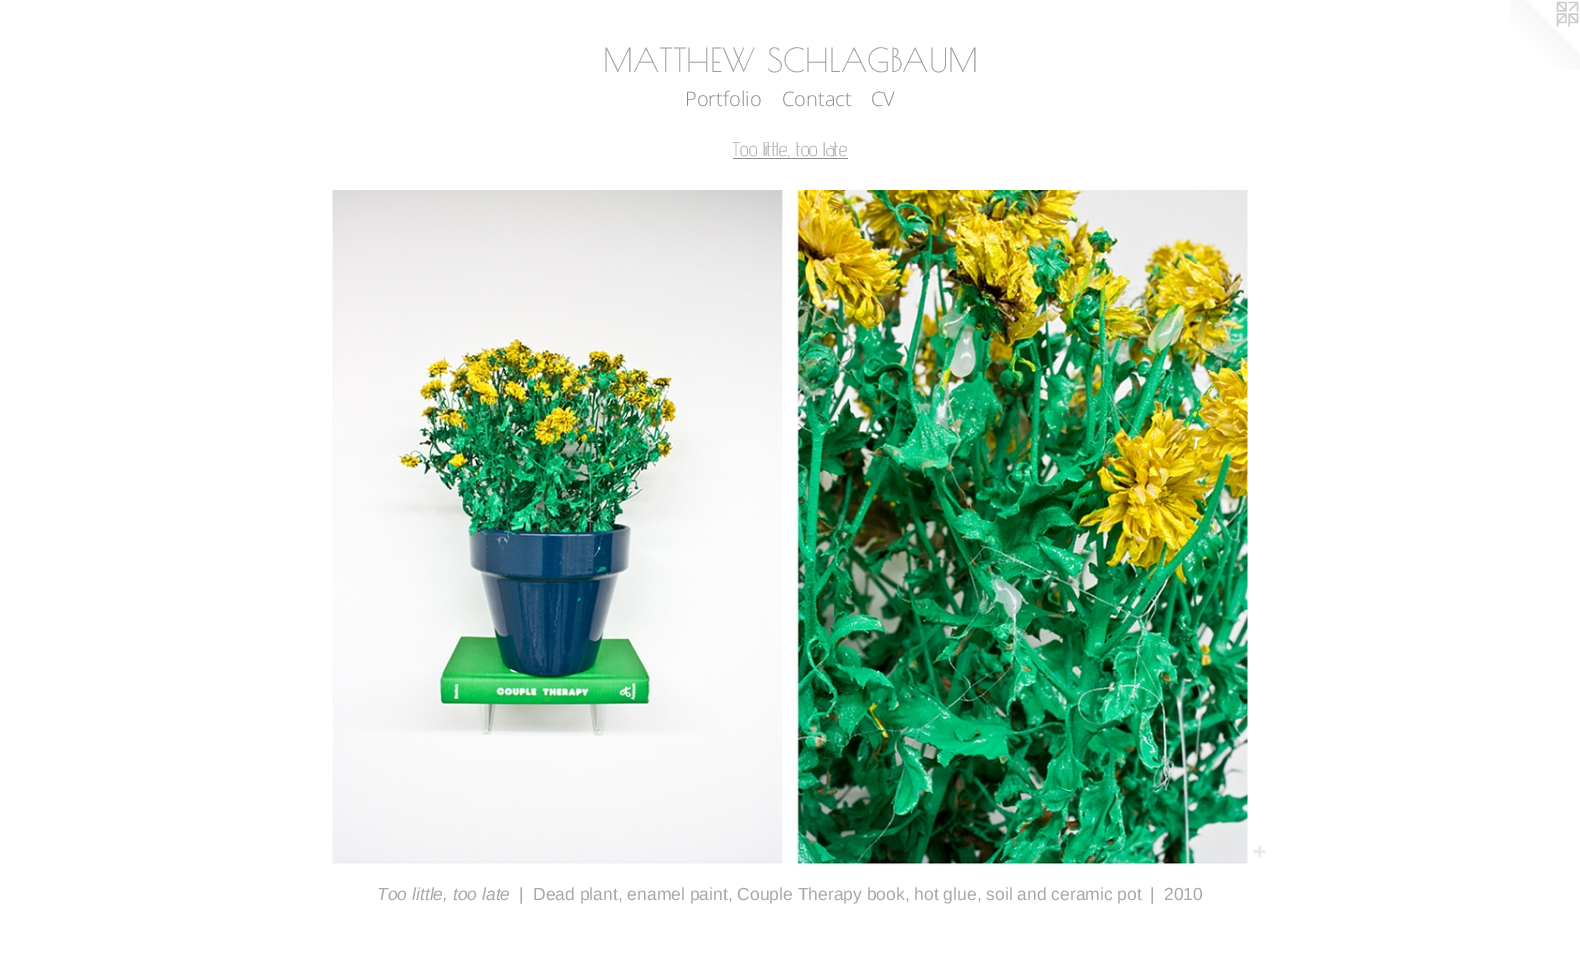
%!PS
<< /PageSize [1580 963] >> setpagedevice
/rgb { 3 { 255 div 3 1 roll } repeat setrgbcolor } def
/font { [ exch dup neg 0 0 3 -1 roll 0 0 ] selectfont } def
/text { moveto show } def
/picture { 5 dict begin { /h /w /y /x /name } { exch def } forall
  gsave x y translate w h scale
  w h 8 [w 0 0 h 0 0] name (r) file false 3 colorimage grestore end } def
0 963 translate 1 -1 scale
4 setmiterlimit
255 255 255 rgb
0 0 1580 963 rectfill
(img_01.rgb) 1510 0 70 70 picture
140 140 140 rgb
733 158 115 1 rectfill
(img_02.rgb) 332 190 916 675 picture
(img_03.rgb) 1253 845 13 13 picture
/PoiretOne-Regular 32.5 font
155 156 150 rgb
(MATTHEW SCHLAGBAUM) 603 72 text
/OpenSans-Light 20 font
140 140 140 rgb
(Portfolio) 685 106 text
(Contact) 782 106 text
(CV) 871 106 text
/AdventPro-ExtraLight 20 font
(Too little, too late) 732 156 text
/LiberationSans-Italic 17.5 font
168 168 168 rgb
(Too little, too late) 377 900 text
/LiberationSans-Regular 17.5 font
(|) 519 900 text
(Dead plant, enamel paint, Couple Therapy book, hot glue, soil and ceramic pot) 533 900 text
(|) 1150 900 text
(2010) 1164 900 text
showpage
